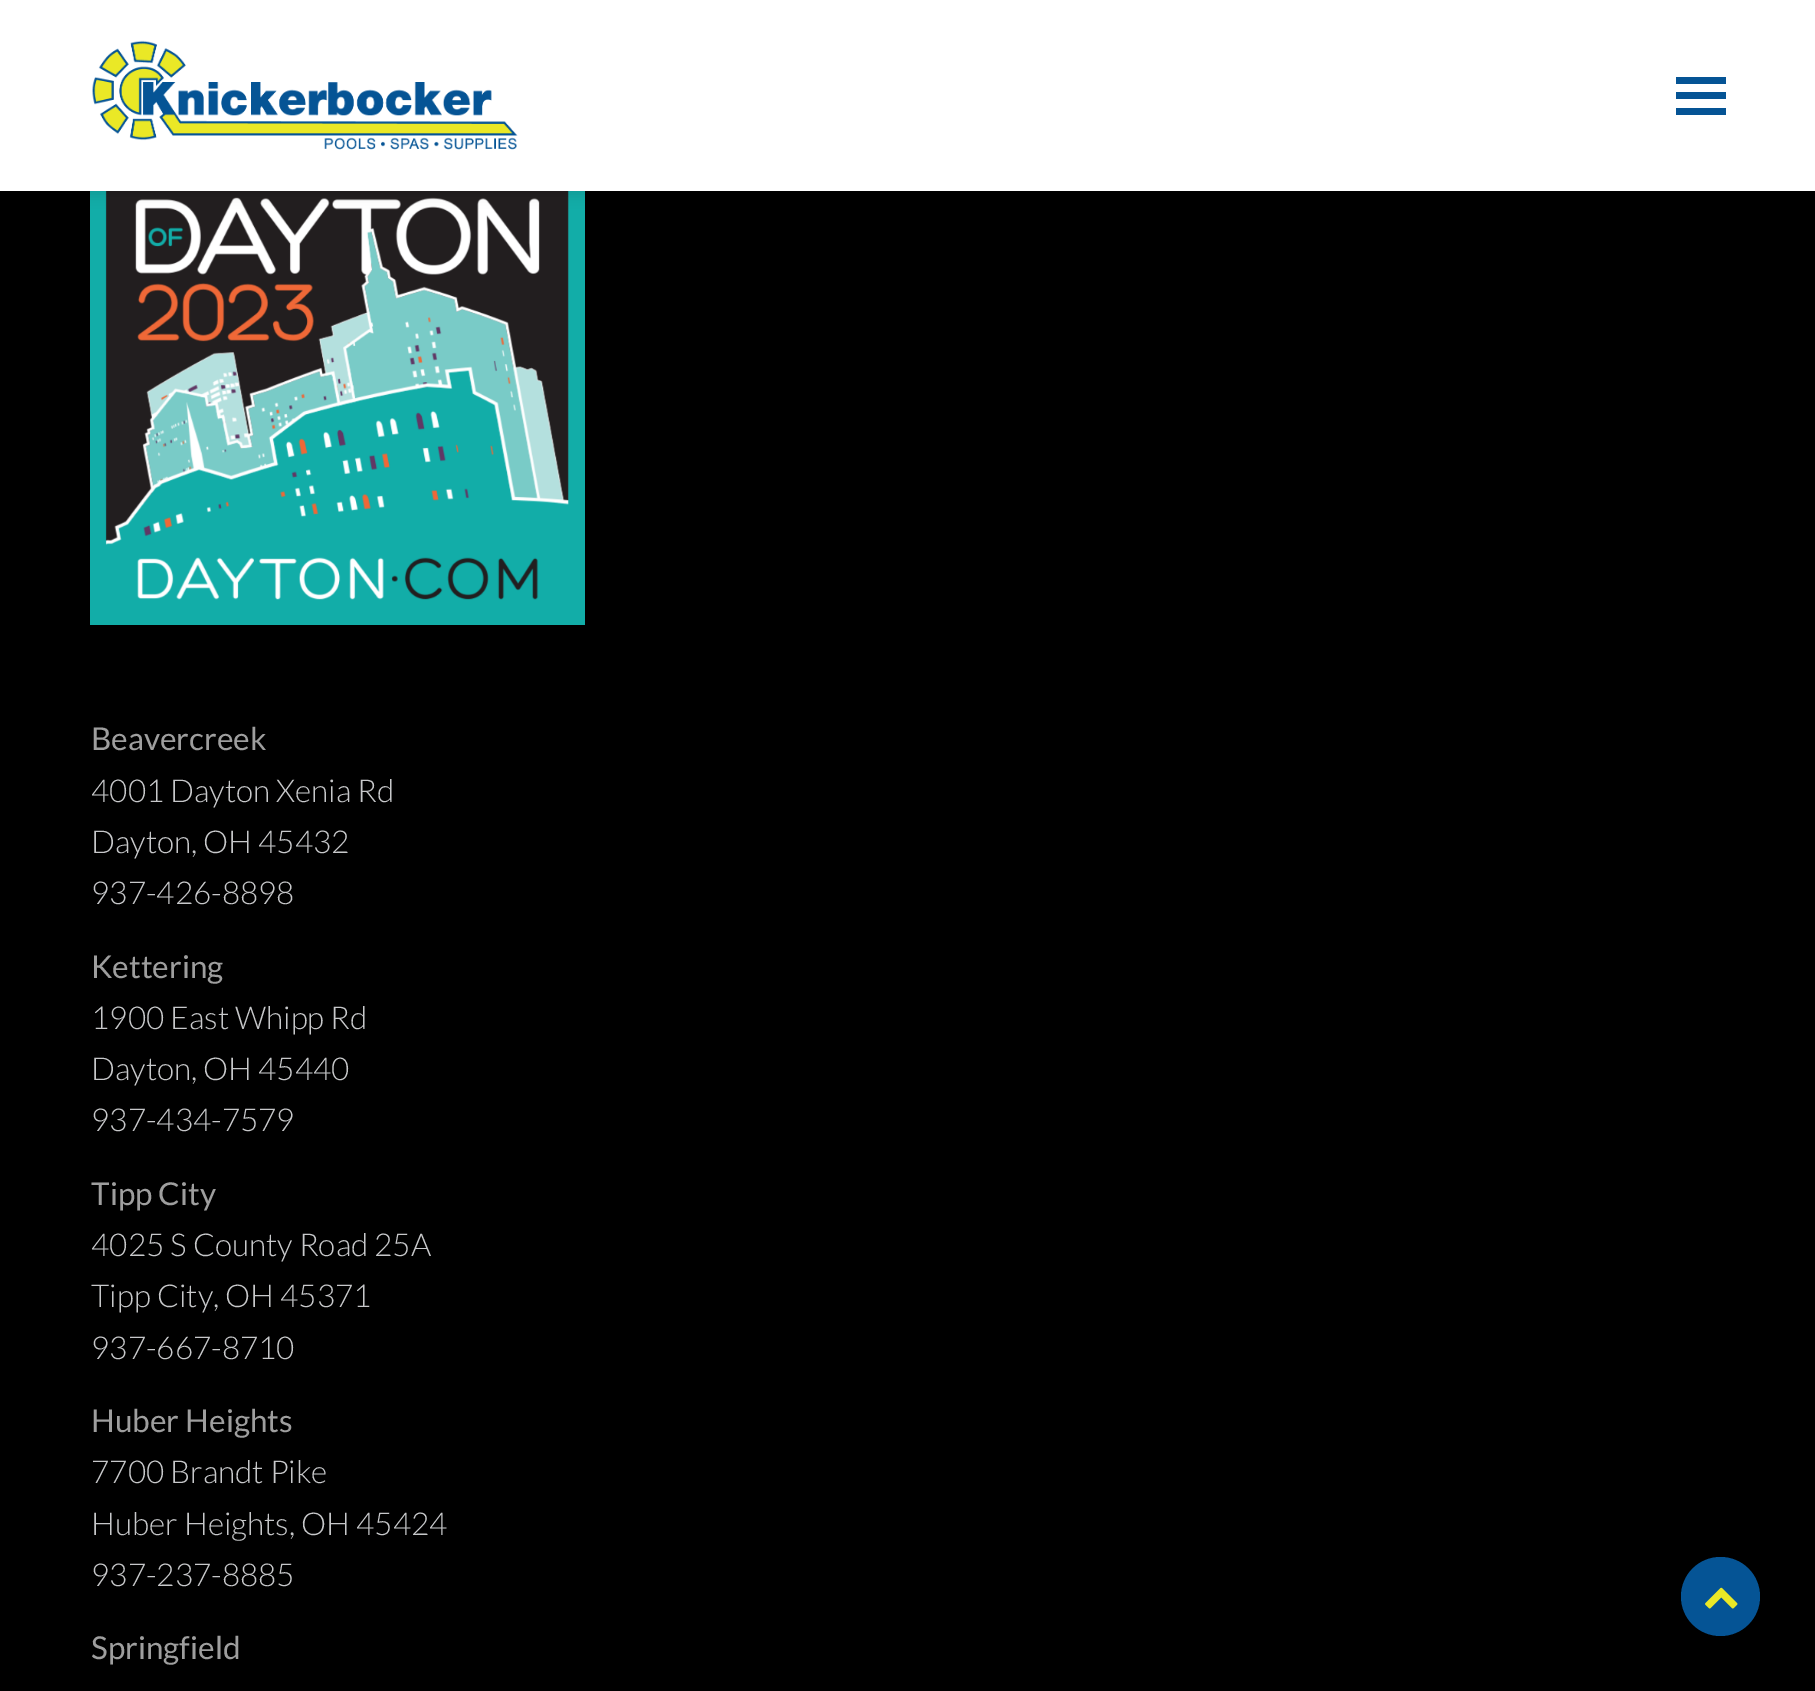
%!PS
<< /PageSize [1815 1691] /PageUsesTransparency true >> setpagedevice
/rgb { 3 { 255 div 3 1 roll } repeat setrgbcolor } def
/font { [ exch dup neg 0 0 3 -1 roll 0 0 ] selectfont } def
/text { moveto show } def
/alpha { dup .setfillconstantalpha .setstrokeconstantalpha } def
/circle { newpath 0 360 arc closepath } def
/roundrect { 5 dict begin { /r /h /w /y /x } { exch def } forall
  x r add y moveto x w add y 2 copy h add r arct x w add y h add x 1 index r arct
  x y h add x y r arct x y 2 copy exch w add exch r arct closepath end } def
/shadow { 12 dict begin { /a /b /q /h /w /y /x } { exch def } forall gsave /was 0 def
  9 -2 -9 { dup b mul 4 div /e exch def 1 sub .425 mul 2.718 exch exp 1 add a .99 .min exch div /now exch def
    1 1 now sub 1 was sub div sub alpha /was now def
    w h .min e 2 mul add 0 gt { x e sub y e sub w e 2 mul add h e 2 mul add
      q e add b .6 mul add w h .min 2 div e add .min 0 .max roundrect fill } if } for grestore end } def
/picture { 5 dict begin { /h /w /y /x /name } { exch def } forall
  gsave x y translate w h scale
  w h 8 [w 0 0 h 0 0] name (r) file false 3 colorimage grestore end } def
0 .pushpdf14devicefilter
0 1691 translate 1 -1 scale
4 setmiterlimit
0 0 0 rgb
0 0 1815 1691 rectfill
(img_02.rgb) 90 191 495 434 picture
0 5 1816 191 0 5.5 0.1 shadow
255 255 255 rgb
0 0 1815 191 rectfill
(img_01.rgb) 92 40 426 110 picture
5 84 149 rgb
1676 92 50 7 rectfill
1676 77 50 7 rectfill
1676 108 50 7 rectfill
1720.5 1596.5 39.5 circle fill
(img_03.rgb) 1705 1587 33 22 picture
/Lato-Regular 31.5 font
158 158 158 rgb
(Beavercreek) 91 750 text
/Lato-Light 31.5 font
199 200 202 rgb
(4001 Dayton Xenia Rd) 91 802 text
(Dayton, OH 45432) 91 853 text
(937-426-8898) 91 904 text
/Lato-Regular 31.5 font
158 158 158 rgb
(Kettering) 91 978 text
/Lato-Light 31.5 font
199 200 202 rgb
(1900 East Whipp Rd) 91 1029 text
(Dayton, OH 45440) 91 1080 text
(937-434-7579) 91 1131 text
/Lato-Regular 31.5 font
158 158 158 rgb
(Tipp City) 91 1205 text
/Lato-Light 31.5 font
199 200 202 rgb
(4025 S County Road 25A) 91 1256 text
(Tipp City, OH 45371) 91 1307 text
(937-667-8710) 91 1359 text
/Lato-Regular 31.5 font
158 158 158 rgb
(Huber Heights) 91 1432 text
/Lato-Light 31.5 font
199 200 202 rgb
(7700 Brandt Pike) 91 1483 text
(Huber Heights, OH 45424) 91 1535 text
(937-237-8885) 91 1586 text
/Lato-Regular 31.5 font
158 158 158 rgb
(Springfield) 91 1659 text
.poppdf14devicefilter showpage
